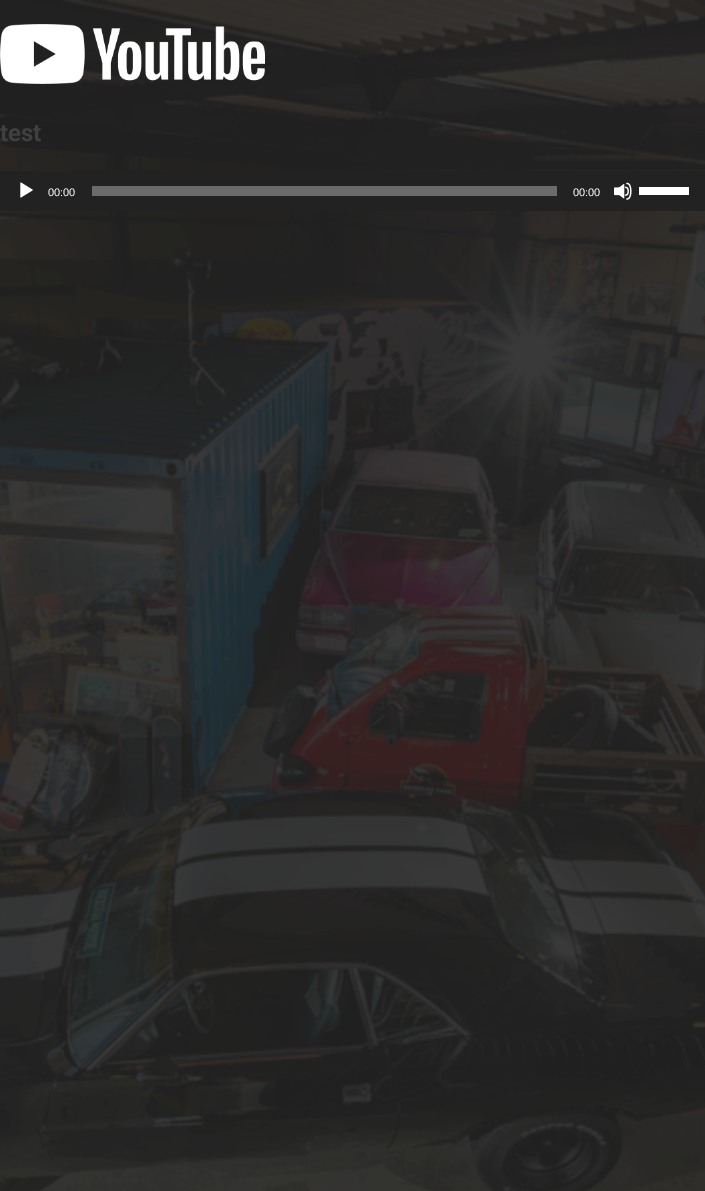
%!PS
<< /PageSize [705 1191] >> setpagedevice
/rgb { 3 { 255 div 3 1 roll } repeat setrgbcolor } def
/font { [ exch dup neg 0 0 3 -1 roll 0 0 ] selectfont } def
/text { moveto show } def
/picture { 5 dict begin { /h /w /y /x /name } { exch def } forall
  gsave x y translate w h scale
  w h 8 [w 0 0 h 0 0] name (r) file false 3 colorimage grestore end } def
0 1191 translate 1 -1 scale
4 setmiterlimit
36 36 36 rgb
0 0 705 1191 rectfill
(img_01.rgb) 0 0 705 1191 picture
(img_02.rgb) 0 24 265 60 picture
34 34 34 rgb
0 171 705 40 rectfill
(img_03.rgb) 20 182 13 16 picture
107 107 107 rgb
92 186 465 10 rectfill
(img_04.rgb) 614 182 18 18 picture
255 255 255 rgb
639 187 50 8 rectfill
/Roboto-Bold 24 font
64 64 64 rgb
(test) 0 141 text
/LiberationSans-Regular 11 font
255 255 255 rgb
(00:00) 48 196 text
(00:00) 573 196 text
showpage
